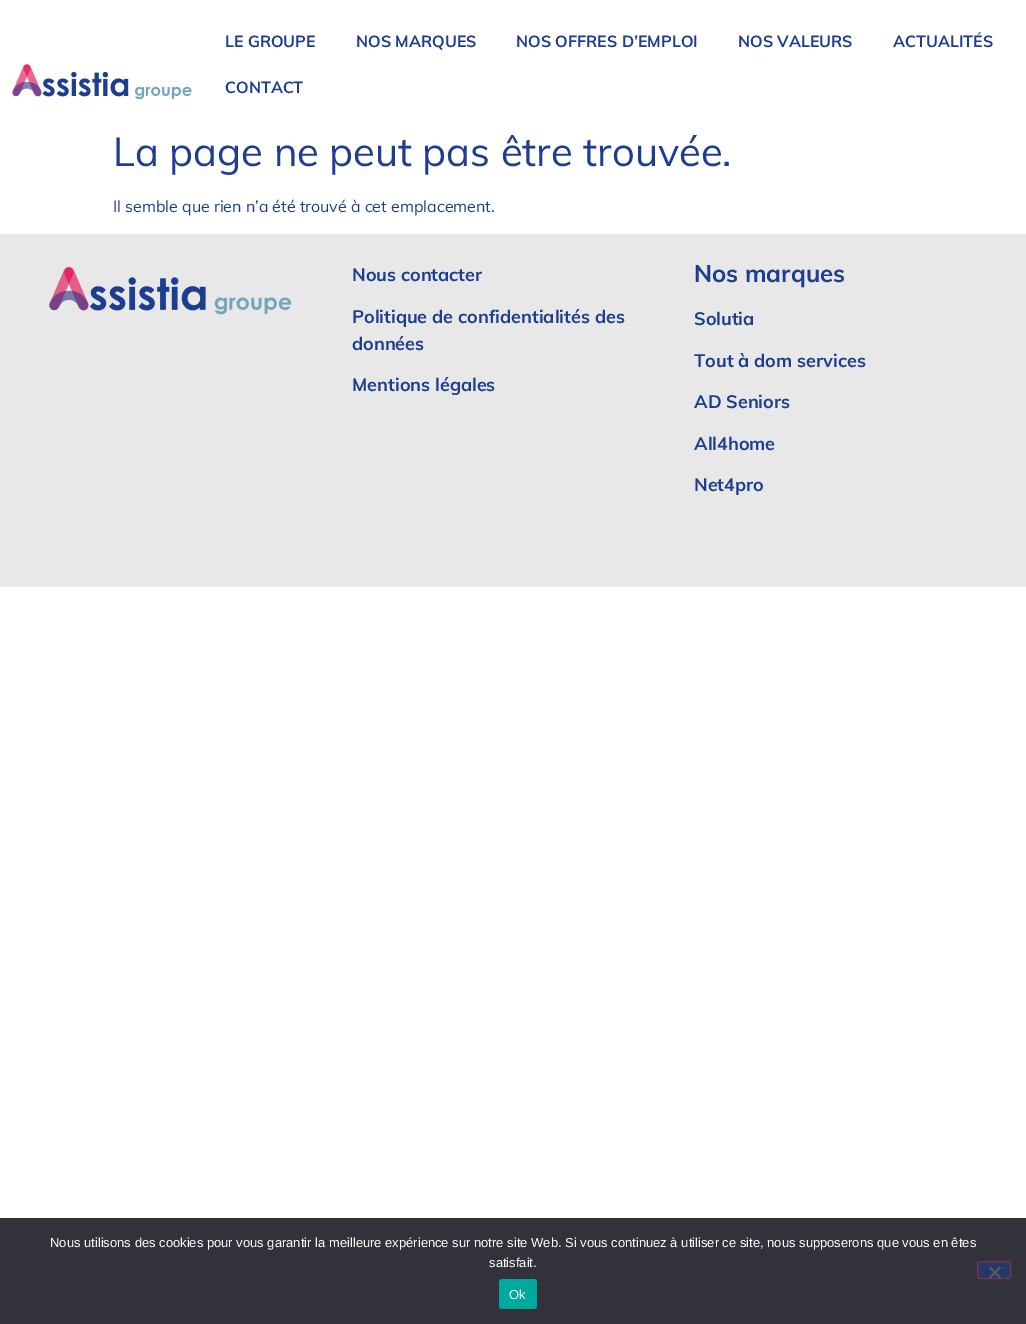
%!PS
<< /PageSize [1026 1324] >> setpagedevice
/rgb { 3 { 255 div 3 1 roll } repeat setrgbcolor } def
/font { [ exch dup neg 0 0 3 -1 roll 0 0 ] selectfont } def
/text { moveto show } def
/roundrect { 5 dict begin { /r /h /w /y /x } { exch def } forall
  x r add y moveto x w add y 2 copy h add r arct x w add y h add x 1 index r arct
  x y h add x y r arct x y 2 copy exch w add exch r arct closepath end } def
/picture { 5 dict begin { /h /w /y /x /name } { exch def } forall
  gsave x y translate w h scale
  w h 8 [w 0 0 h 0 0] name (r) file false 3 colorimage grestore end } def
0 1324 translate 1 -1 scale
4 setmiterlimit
255 255 255 rgb
0 0 1026 1324 rectfill
(img_01.rgb) 12 64 180 36 picture
232 232 232 rgb
0 234 1026 353 rectfill
(img_02.rgb) 49 267 243 48 picture
50 50 58 rgb
0 1218 1026 106 rectfill
40 56 102 rgb
977.5 1261.5 33 17 2.5 roundrect gsave fill grestore
127 51 80 rgb
stroke
89 89 93 rgb
999.5 1266.5 moveto 1.5 1.5 rlineto -10.5 10.5 rlineto -1.5 -1.5 rlineto closepath fill
989 1268 moveto 1.5 -1.5 rlineto 10.5 10.5 rlineto -1.5 1.5 rlineto closepath fill
0 169 157 rgb
499 1279 38 30 3 roundrect fill
/Muli-Bold 16 font
29 61 145 rgb
(LE GROUPE) 225 47 text
(NOS MARQUES) 356 47 text
(NOS OFFRES D’EMPLOI) 516 47 text
(NOS VALEURS) 738 47 text
(ACTUALITÉS) 893 47 text
(CONTACT) 225 93 text
/Muli-Regular 40 font
(La page ne peut pas être trouvée.) 113 166 text
/Muli-Regular 16 font
(Il semble que rien n’a été trouvé à cet emplacement.) 113 212 text
/Muli-Bold 18 font
(Nous contacter) 352 281 text
(Politique de confidentialités des) 352 323 text
(données) 352 350 text
(Mentions légales) 352 391 text
/Muli-Bold 24 font
(Nos marques) 694 282 text
/Muli-Bold 18 font
(Solutia) 694 325 text
(Tout à dom services) 694 367 text
(AD Seniors) 694 408 text
(All4home) 694 450 text
(Net4pro) 694 491 text
/LiberationSans-Regular 13 font
255 255 255 rgb
(Nous utilisons des cookies pour vous garantir la meilleure expérience sur notre site Web. Si vous continuez à utiliser ce site, nous supposerons que vous en êtes) 50 1247 text
(satisfait.) 489 1267 text
(Ok) 509 1299 text
showpage
